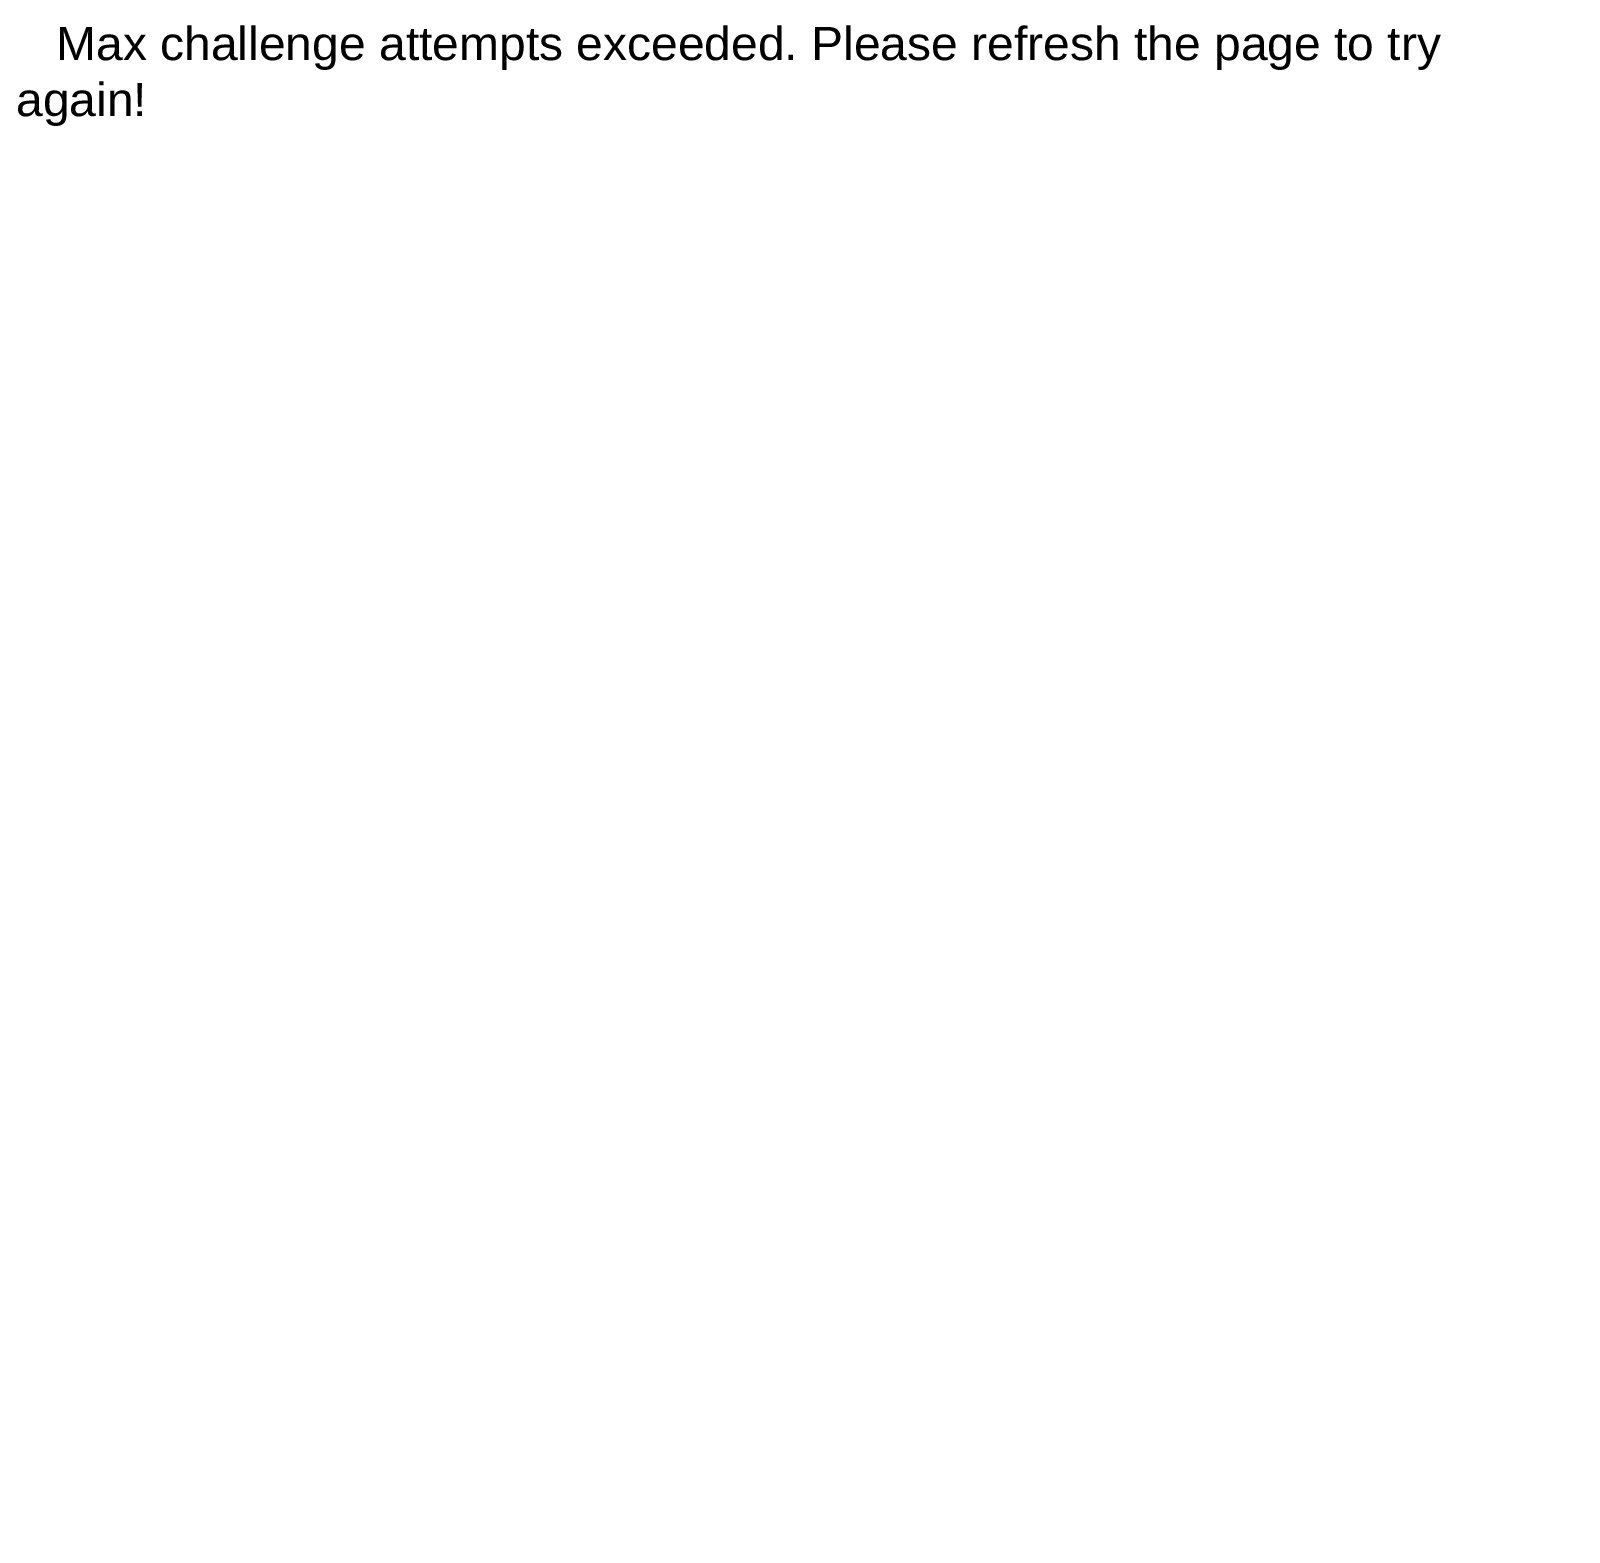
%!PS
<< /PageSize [1600 1563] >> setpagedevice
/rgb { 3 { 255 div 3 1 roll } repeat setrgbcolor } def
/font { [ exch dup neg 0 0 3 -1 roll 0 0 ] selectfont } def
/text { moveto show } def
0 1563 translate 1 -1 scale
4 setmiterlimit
255 255 255 rgb
0 0 1600 1563 rectfill
/LiberationSans-Regular 48 font
0 0 0 rgb
(Max challenge attempts exceeded. Please refresh the page to try) 56 60 text
(again!) 16 116 text
showpage
